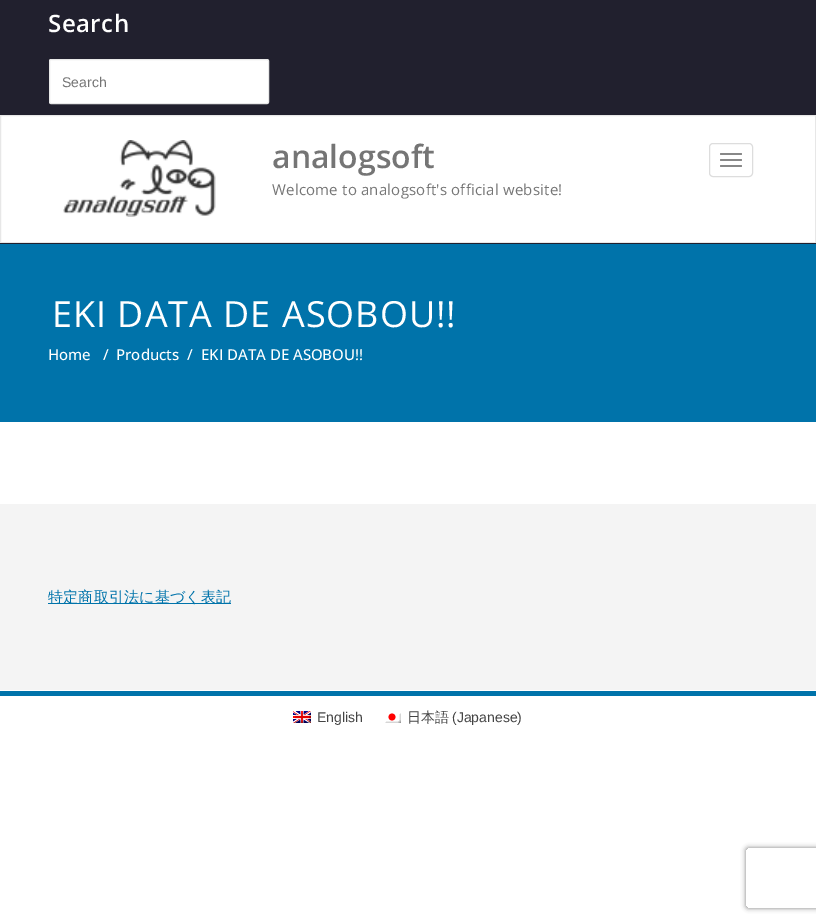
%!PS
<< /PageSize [816 922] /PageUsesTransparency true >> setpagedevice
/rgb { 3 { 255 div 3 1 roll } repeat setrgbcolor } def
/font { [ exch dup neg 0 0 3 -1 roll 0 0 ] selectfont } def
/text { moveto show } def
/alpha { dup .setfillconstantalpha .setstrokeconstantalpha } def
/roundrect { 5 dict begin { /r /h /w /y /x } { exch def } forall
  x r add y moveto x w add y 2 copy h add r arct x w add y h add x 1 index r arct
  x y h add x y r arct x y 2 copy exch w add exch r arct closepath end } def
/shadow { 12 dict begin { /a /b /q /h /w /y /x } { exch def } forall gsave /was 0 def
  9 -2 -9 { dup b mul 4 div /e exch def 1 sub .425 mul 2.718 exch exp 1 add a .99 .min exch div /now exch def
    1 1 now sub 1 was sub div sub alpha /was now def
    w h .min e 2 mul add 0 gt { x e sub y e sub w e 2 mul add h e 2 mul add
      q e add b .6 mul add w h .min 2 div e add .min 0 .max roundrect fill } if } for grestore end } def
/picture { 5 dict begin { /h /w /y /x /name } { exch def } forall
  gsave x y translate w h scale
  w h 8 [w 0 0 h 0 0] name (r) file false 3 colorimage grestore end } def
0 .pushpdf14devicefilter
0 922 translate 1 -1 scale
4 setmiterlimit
255 255 255 rgb
0 0 816 922 rectfill
33 32 46 rgb
0 0 816 115 rectfill
255 255 255 rgb
49.5 59.5 219 44 1.5 roundrect gsave fill grestore
233 233 233 rgb
stroke
231 231 231 rgb
0.5 115.5 815 127 rectstroke
(img_01.rgb) 63 140 153 77 picture
221 221 221 rgb
709.5 143.5 43 33 3.5 roundrect stroke
136 136 136 rgb
720 153 22 2 1 roundrect fill
720 159 22 2 1 roundrect fill
720 165 22 2 1 roundrect fill
0 115 170 rgb
0 244 816 178 rectfill
33 32 46 rgb
0 243 816 1 rectfill
244 244 244 rgb
0 504 816 186 rectfill
0 115 170 rgb
48 603 183 1 rectfill
0 691 816 5 rectfill
(img_02.rgb) 293 711 18 12 picture
(img_03.rgb) 385 713 16 10 picture
gsave
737 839 moveto 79 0 rlineto 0 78 rlineto -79 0 rlineto closepath 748 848 moveto 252 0 rlineto 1 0 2 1 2 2 rcurveto 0 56 rlineto 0 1 -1 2 -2 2 rcurveto -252 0 rlineto -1 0 -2 -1 -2 -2 rcurveto 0 -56 rlineto 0 -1 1 -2 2 -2 rcurveto closepath eoclip newpath
128 128 128 rgb
746 848 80 60 2 2.5 1 shadow
grestore
/OpenSans-SemiBold 24 font
255 255 255 rgb
48 32 moveto 0.5 0 (Search) ashow
/LiberationSans-Regular 14 font
117 117 117 rgb
(Search) 62 87 text
/OpenSans-SemiBold 32 font
(analogsoft) 272 168 text
/OpenSans-Regular 15 font
272 195 moveto 0.2 0 (Welcome to analogsoft's official website!) ashow
/OpenSans-Regular 36 font
255 255 255 rgb
52 327 moveto 1 0 (EKI DATA DE ASOBOU!!) ashow
/OpenSans-Medium 15 font
(Home) 48 360 text
(/) 103 360 text
(Products) 116 360 text
(/) 187 360 text
(EKI DATA DE ASOBOU!!) 201 360 text
/WenQuanYiZenHei-Medium 15 font
0 115 170 rgb
48 602 moveto 0.2 0 (特定商取引法に基づく表記) ashow
/LiberationSans-Regular 14 font
68 68 68 rgb
(English) 317 722 text
/WenQuanYiZenHei-Medium 14 font
(日本語) 407 722 text
/LiberationSans-Regular 14 font
(\(Japanese\)) 452 722 text
.poppdf14devicefilter showpage
